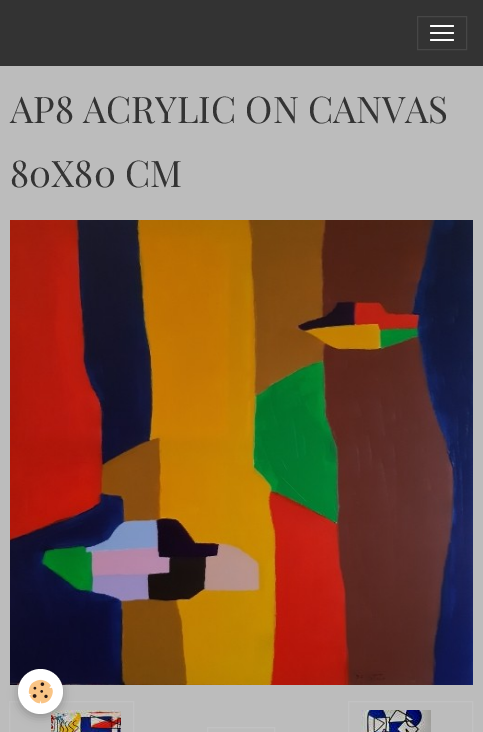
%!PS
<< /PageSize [483 732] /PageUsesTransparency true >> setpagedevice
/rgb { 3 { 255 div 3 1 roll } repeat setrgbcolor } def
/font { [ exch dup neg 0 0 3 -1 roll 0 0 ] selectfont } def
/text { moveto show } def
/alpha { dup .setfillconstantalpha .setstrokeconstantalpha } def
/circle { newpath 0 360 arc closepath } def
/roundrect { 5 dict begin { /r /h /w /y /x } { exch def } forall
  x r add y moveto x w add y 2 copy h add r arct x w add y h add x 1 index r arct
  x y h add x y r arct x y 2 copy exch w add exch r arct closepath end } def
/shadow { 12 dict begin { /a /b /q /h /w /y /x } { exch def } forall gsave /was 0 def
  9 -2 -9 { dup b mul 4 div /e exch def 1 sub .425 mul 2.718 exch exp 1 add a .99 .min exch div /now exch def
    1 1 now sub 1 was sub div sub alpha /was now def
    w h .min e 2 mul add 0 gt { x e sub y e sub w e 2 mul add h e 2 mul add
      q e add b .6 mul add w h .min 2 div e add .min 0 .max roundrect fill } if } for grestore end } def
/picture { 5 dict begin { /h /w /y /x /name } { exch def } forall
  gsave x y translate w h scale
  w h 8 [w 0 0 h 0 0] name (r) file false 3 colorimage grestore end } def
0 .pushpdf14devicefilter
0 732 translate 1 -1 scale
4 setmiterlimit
188 188 188 rgb
0 0 483 732 rectfill
51 51 51 rgb
0 0 483 66 rectfill
71 71 71 rgb
417.5 16.5 49 33 rectstroke
255 255 255 rgb
430 25 24 2 1 roundrect fill
430 32 24 2 1 roundrect fill
430 39 24 2 1 roundrect fill
(img_01.rgb) 10 220 463 465 picture
194 194 195 rgb
9.5 701.5 124 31 rectstroke
(img_02.rgb) 51 710 70 22 picture
207.5 727.5 67 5 rectstroke
348.5 701.5 124 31 rectstroke
(img_03.rgb) 361 710 70 22 picture
0 0 0 rgb
18 672 45 45 22.5 5 0.24 shadow
255 255 255 rgb
40.5 691.5 22.5 circle fill
(img_04.rgb) 28 679 25 25 picture
/PlayfairDisplay-Regular 36.75 font
51 51 51 rgb
(AP8 ACRYLIC ON CANVAS) 10 123 text
(80X80 CM) 10 187 text
.poppdf14devicefilter showpage
